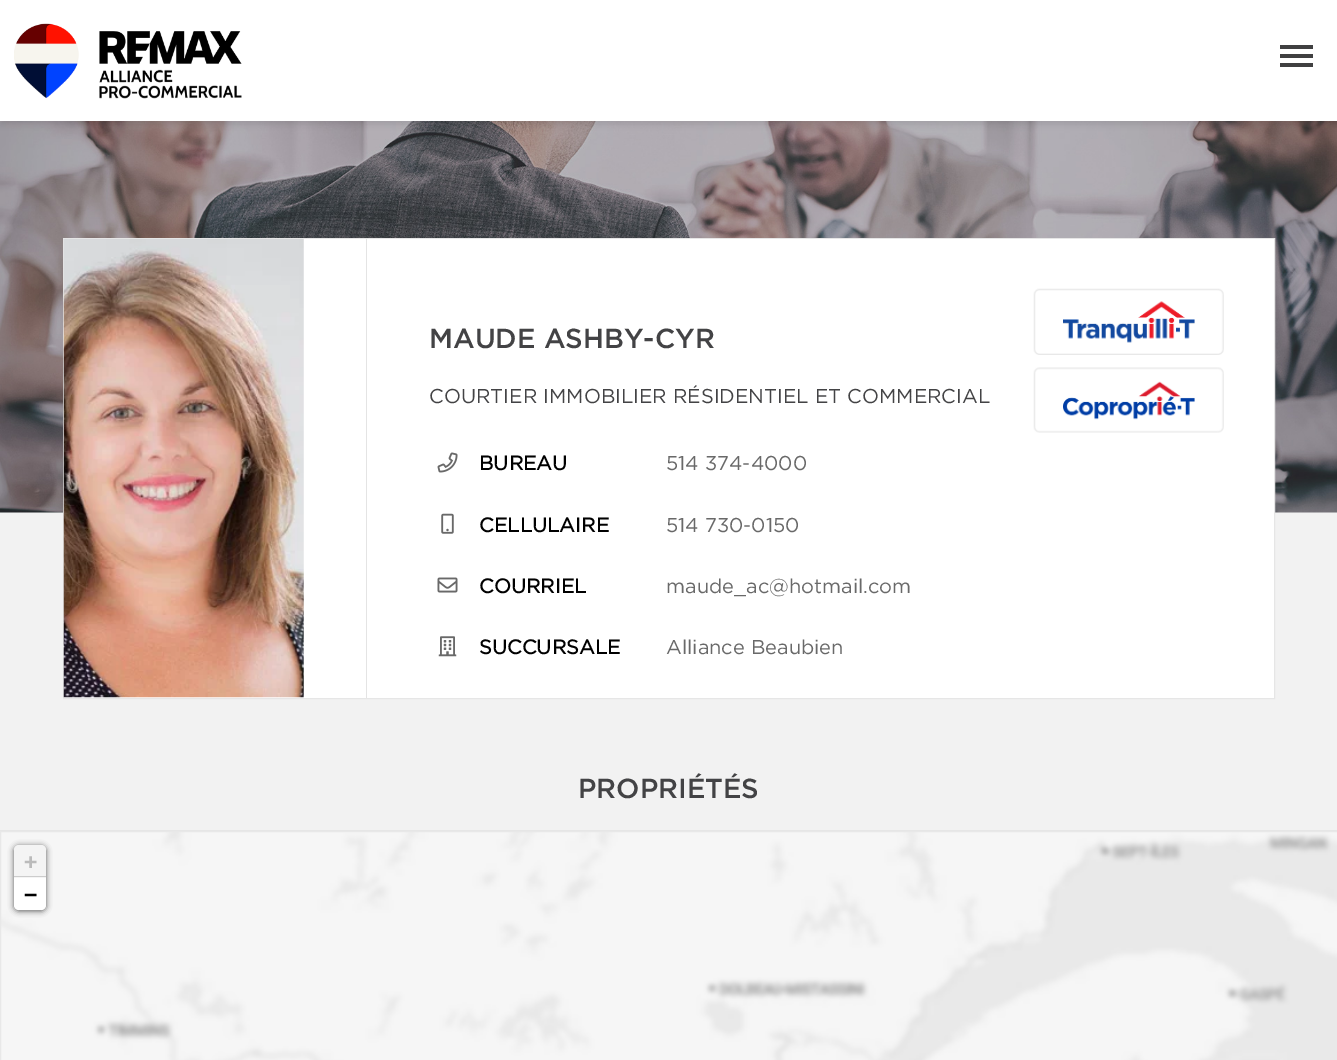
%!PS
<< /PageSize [1337 1060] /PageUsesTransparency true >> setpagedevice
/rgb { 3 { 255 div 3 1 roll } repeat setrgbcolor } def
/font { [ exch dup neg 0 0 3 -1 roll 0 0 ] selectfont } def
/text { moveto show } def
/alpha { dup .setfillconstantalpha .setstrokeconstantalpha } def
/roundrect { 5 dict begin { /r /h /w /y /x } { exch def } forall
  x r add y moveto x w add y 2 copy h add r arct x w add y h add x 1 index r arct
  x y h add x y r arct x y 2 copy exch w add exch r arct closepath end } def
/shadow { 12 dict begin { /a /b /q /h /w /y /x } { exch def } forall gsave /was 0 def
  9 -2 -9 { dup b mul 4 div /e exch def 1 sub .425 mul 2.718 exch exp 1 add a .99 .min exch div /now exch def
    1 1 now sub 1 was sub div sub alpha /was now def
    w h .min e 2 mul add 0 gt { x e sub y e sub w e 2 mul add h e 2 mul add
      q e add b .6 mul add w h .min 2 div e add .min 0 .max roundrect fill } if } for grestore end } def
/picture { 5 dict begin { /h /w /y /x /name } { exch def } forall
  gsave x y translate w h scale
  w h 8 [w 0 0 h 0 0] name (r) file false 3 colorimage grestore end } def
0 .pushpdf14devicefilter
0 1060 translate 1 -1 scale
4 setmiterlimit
242 242 242 rgb
0 0 1337 1060 rectfill
(img_02.rgb) 0 121 1337 392 picture
0 0 0 rgb
1 3 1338 121 0 3 0.1 shadow
255 255 255 rgb
0 0 1337 121 rectfill
(img_01.rgb) 14 23 228 76 picture
64 64 65 rgb
1280 45 33 4 rectfill
1280 54 33 4 rectfill
1280 63 33 4 rectfill
230 230 230 rgb
63.5 238.5 1211 460 rectstroke
255 255 255 rgb
64 239 1210 459 rectfill
(img_03.rgb) 63 239 241 459 picture
228 228 228 rgb
366 239 1 459 rectfill
(img_04.rgb) 1033 288 191 67 picture
(img_05.rgb) 1033 367 191 66 picture
(img_06.rgb) 437 452 21 21 picture
(img_07.rgb) 441 513 13 21 picture
(img_08.rgb) 437 577 21 16 picture
(img_09.rgb) 438 636 19 21 picture
(img_10.rgb) 1 832 1336 228 picture
230 230 230 rgb
0 830 1337 1 rectfill
232 232 232 rgb
0.5 831.5 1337 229 rectstroke
0 0 0 rgb
14 846 32 65 5 3 0.65 shadow
244 244 244 rgb
19 845 moveto 22 0 rlineto 3 0 5 2 5 5 rcurveto 0 28 rlineto -32 0 rlineto 0 -28 rlineto 0 -3 2 -5 5 -5 rcurveto closepath fill
204 204 204 rgb
14 876 32 1 rectfill
255 255 255 rgb
14 878 moveto 32 0 rlineto 0 27 rlineto 0 3 -2 5 -5 5 rcurveto -22 0 rlineto -3 0 -5 -2 -5 -5 rcurveto closepath fill
/Gotham-Medium 27.5 font
67 67 69 rgb
(MAUDE ASHBY-CYR) 429 348 text
/Gotham-Regular 20 font
(COURTIER IMMOBILIER RÉSIDENTIEL ET COMMERCIAL) 429 403 text
/Gotham-Bold 20 font
0 0 0 rgb
(BUREAU) 479 470 text
/Gotham-Regular 20 font
105 105 105 rgb
(514 374-4000) 666 470 text
/Gotham-Bold 20 font
0 0 0 rgb
(CELLULAIRE) 479 532 text
/Gotham-Regular 20 font
105 105 105 rgb
(514 730-0150) 666 532 text
/Gotham-Bold 20 font
0 0 0 rgb
(COURRIEL) 479 593 text
/Gotham-Regular 20 font
105 105 105 rgb
(maude_ac@hotmail.com) 666 593 text
/Gotham-Bold 20 font
0 0 0 rgb
(SUCCURSALE) 479 654 text
/Gotham-Regular 20 font
105 105 105 rgb
(Alliance Beaubien) 666 654 text
/Gotham-Medium 27.5 font
67 67 69 rgb
(PROPRIÉTÉS) 578 798 text
/DejaVuSansMono-Bold 22 font
187 187 187 rgb
(+) 24 869 text
0 0 0 rgb
(−) 24 902 text
.poppdf14devicefilter showpage
